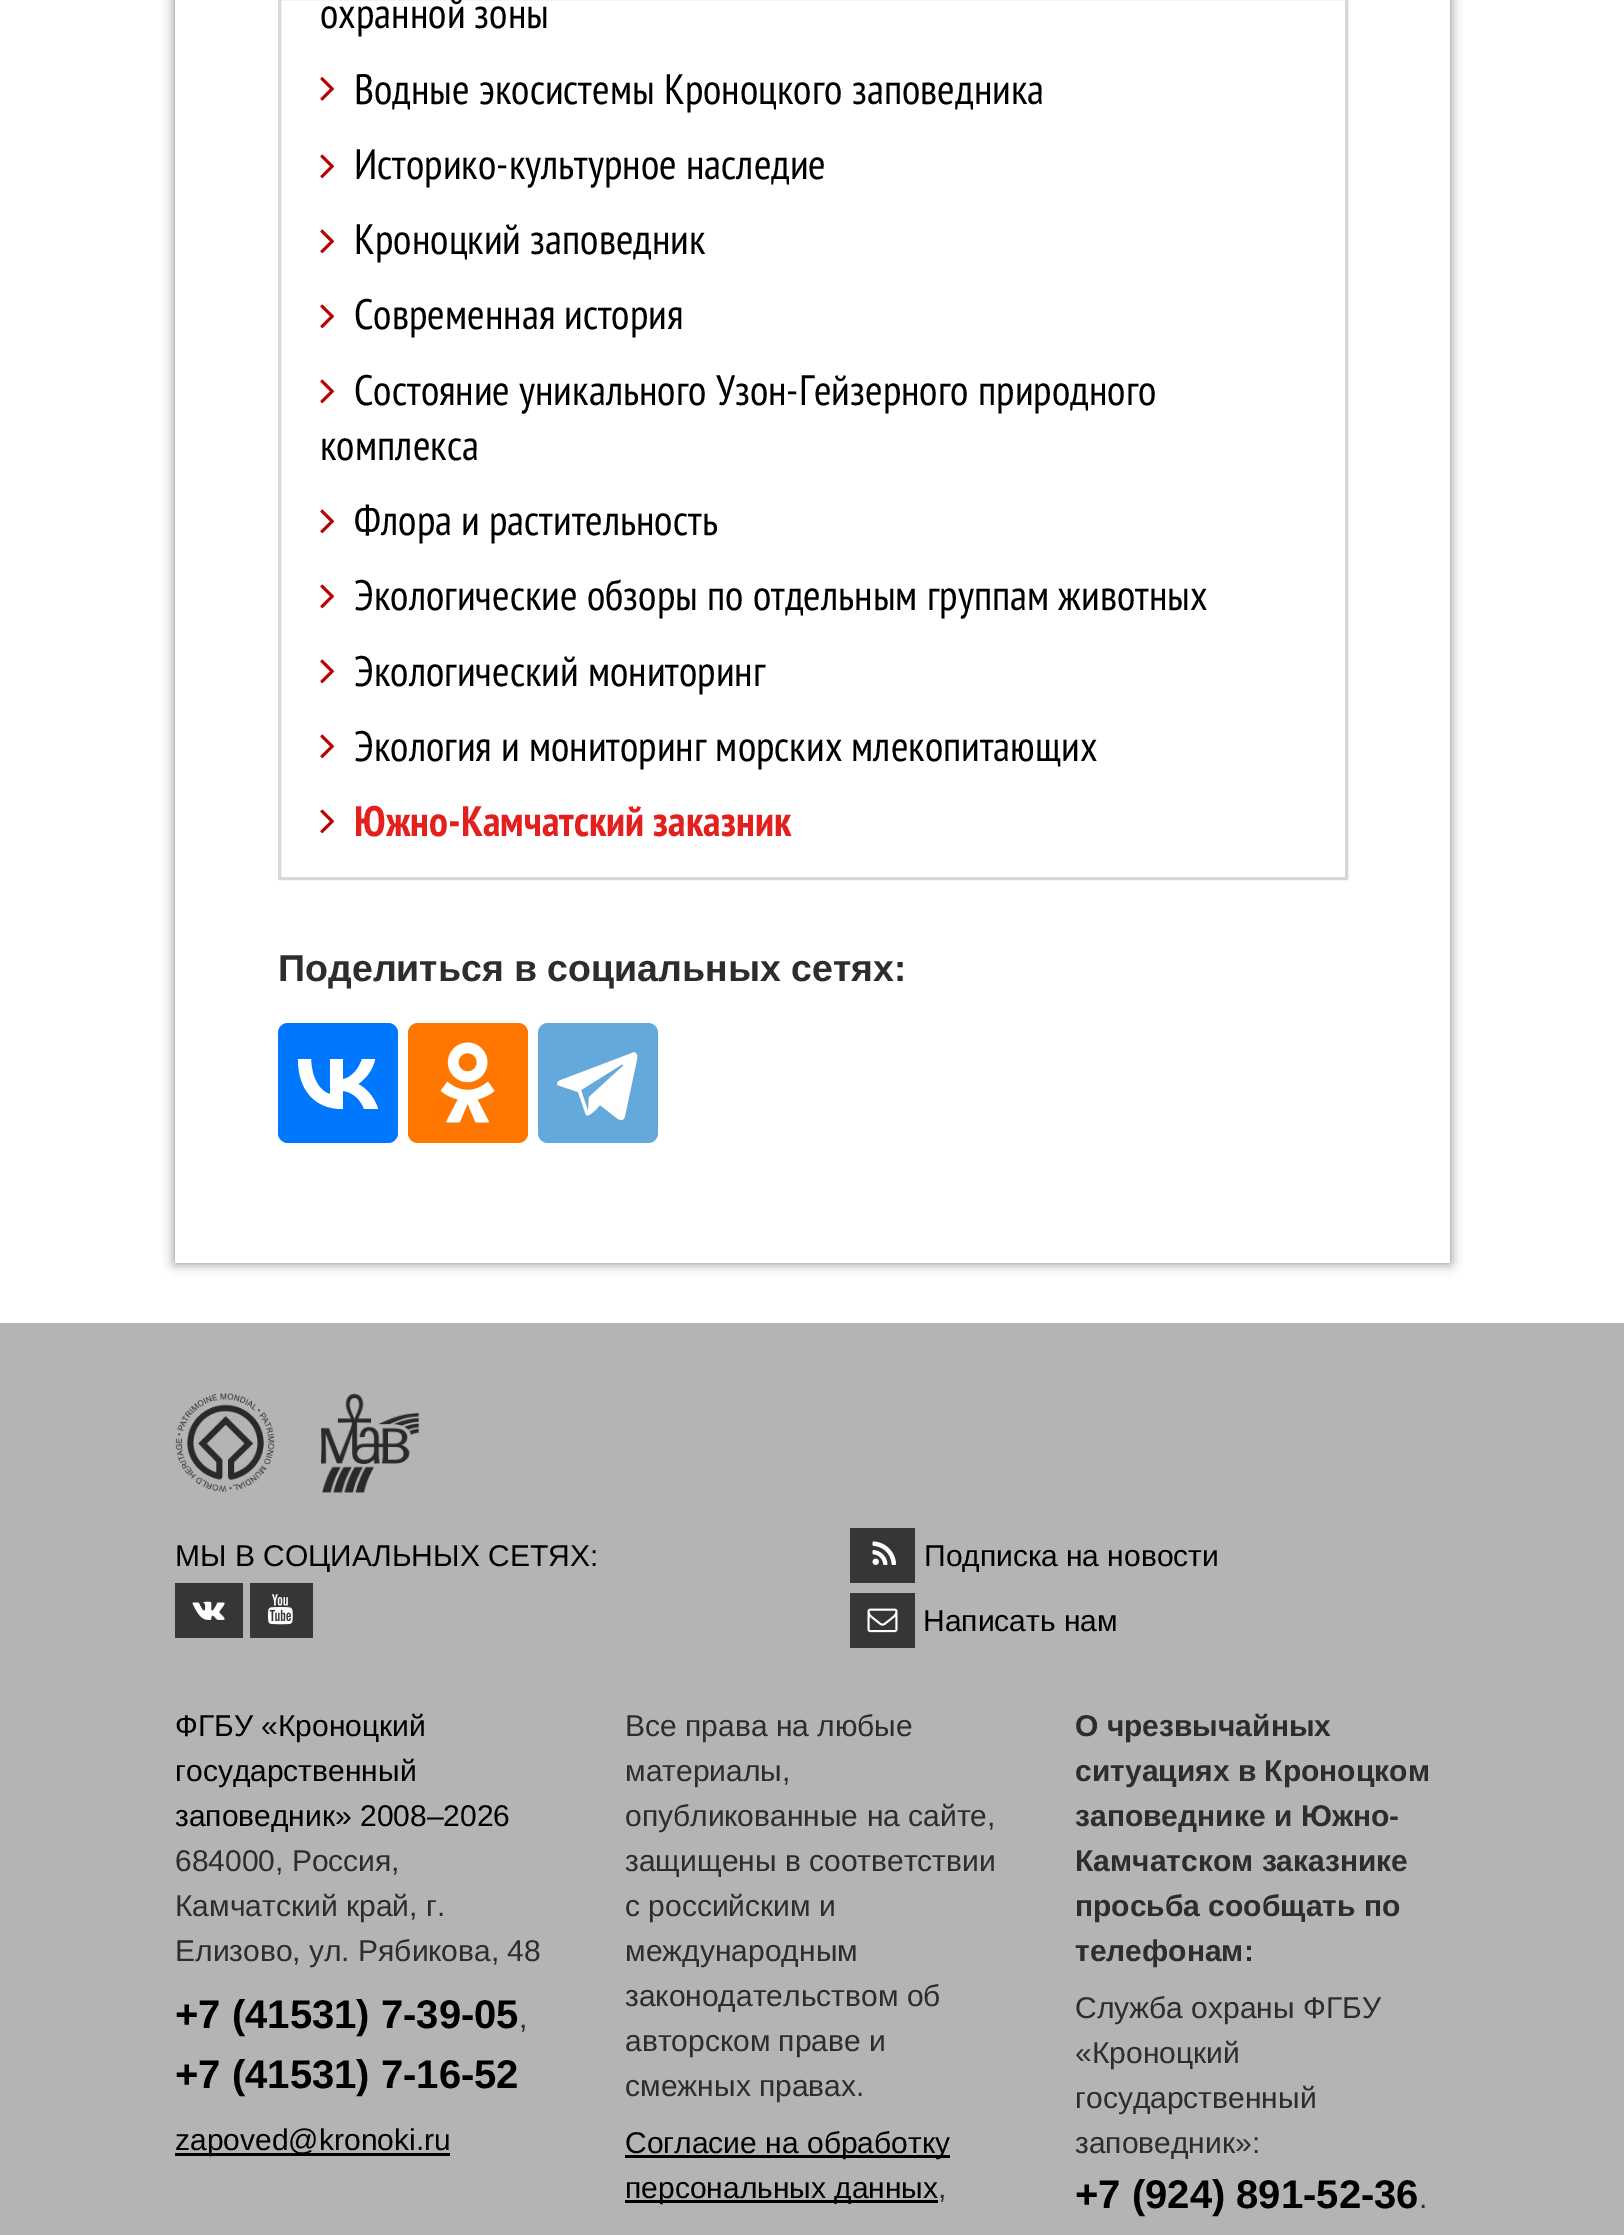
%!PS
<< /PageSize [1624 2235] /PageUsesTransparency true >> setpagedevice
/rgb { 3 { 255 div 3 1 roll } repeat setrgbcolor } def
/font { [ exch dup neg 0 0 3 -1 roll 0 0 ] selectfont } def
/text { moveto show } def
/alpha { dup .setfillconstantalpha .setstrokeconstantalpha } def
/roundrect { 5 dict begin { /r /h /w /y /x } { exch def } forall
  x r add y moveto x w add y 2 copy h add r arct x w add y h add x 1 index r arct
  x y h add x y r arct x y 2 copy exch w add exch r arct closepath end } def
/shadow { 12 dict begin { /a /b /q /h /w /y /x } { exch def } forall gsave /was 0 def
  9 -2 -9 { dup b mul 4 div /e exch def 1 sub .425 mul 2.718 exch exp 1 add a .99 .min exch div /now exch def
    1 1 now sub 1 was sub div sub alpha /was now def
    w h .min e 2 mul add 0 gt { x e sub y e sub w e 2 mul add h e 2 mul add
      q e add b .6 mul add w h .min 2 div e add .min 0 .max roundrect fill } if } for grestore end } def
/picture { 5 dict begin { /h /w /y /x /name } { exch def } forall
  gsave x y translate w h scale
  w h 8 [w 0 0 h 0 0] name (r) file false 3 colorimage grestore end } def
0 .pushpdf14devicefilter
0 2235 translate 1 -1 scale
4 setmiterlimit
255 255 255 rgb
0 0 1624 2235 rectfill
0 0 0 rgb
175 -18 1275 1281 0 6 0.5 shadow
255 255 255 rgb
175 0 1275 1263 rectfill
215 215 215 rgb
3 setlinewidth
279.5 -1.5 1067 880 rectstroke
(img_01.rgb) 320 77 15 24 picture
(img_02.rgb) 320 154 15 25 picture
(img_02.rgb) 320 229 15 25 picture
(img_02.rgb) 320 304 15 25 picture
(img_02.rgb) 320 379 15 25 picture
(img_02.rgb) 320 509 15 25 picture
(img_02.rgb) 320 584 15 25 picture
(img_02.rgb) 320 659 15 25 picture
(img_02.rgb) 320 734 15 25 picture
(img_02.rgb) 320 809 15 25 picture
0 119 255 rgb
278 1023 120 120 10 roundrect fill
255 255 255 rgb
342 1109 moveto -27 0 -44 -19 -44 -50 rcurveto 13 0 rlineto 1 23 11 33 19 35 rcurveto 0 -35 rlineto 13 0 rlineto 0 20 rlineto 8 -1 16 -10 19 -20 rcurveto 13 0 rlineto -2 12 -11 21 -17 25 rcurveto 6 3 16 11 20 25 rcurveto -14 0 rlineto -3 -9 -11 -17 -21 -18 rcurveto 0 18 rlineto closepath fill
255 119 0 rgb
408 1023 120 120 10 roundrect fill
(img_03.rgb) 440 1042 55 81 picture
100 169 220 rgb
538 1023 120 120 10 roundrect fill
255 255 255 rgb
632 1053 moveto -71 27 rlineto -5 2 -5 5 -1 6 rcurveto 18 6 rlineto 8 23 rlineto 3 3 13 -9 14 -10 rcurveto 18 14 rlineto 4 2 6 1 7 -3 rcurveto 12 -57 rlineto 1 -5 -2 -8 -5 -6 rcurveto closepath 581 1090 moveto 40 -25 rlineto 2 -1 3 0 2 1 rcurveto -34 31 rlineto -1 14 rlineto closepath eofill
180 180 180 rgb
0 1323 1624 912 rectfill
(img_04.rgb) 175 1393 100 99 picture
(img_05.rgb) 321 1393 99 100 picture
54 54 54 rgb
175 1583 68 55 rectfill
(img_06.rgb) 192 1601 33 19 picture
250 1583 63 55 rectfill
(img_07.rgb) 267 1594 26 31 picture
850 1528 65 55 rectfill
(img_08.rgb) 872 1541 25 24 picture
850 1593 65 55 rectfill
(img_09.rgb) 867 1608 31 25 picture
0 0 0 rgb
175 2153 275 3 rectfill
625 2155 325 3 rectfill
625 2200 313 3 rectfill
/PTSansNarrow-Regular 42.5 font
(охранной зоны) 320 28 text
(Водные экосистемы Кроноцкого заповедника) 354 104 text
(Историко-культурное наследие) 354 179 text
(Кроноцкий заповедник) 354 254 text
(Современная история) 354 329 text
(Состояние уникального Узон-Гейзерного природного) 354 405 text
(комплекса) 320 460 text
(Флора и растительность) 354 535 text
(Экологические обзоры по отдельным группам животных) 354 610 text
(Экологический мониторинг) 354 686 text
(Экология и мониторинг морских млекопитающих) 354 761 text
/PTSansNarrow-Bold 42.5 font
227 32 30 rgb
(Южно-Камчатский заказник) 354 836 text
/LiberationSans-Bold 37.5 font
45 45 45 rgb
(Поделиться в социальных сетях:) 278 981 text
/LiberationSans-Regular 30 font
0 0 0 rgb
(МЫ В СОЦИАЛЬНЫХ СЕТЯХ:) 175 1566 text
(Подписка на новости) 924 1566 text
(Написать нам) 923 1631 text
(ФГБУ «Кроноцкий) 175 1736 text
(государственный) 175 1781 text
(заповедник» 2008–2026) 175 1826 text
45 45 45 rgb
(684000, Россия,) 175 1871 text
(Камчатский край, г.) 175 1916 text
(Елизово, ул. Рябикова, 48) 175 1961 text
/LiberationSans-Bold 40 font
0 0 0 rgb
(+7 \(41531\) 7-39-05) 175 2028 text
/LiberationSans-Regular 30 font
45 45 45 rgb
(,) 519 2028 text
/LiberationSans-Bold 40 font
0 0 0 rgb
(+7 \(41531\) 7-16-52) 175 2088 text
/LiberationSans-Regular 30 font
(zapoved@kronoki.ru) 175 2150 text
45 45 45 rgb
(Все права на любые) 625 1736 text
(материалы,) 625 1781 text
(опубликованные на сайте,) 625 1826 text
(защищены в соответствии) 625 1871 text
(с российским и) 625 1916 text
(международным) 625 1961 text
(законодательством об) 625 2006 text
(авторском праве и) 625 2051 text
(смежных правах.) 625 2096 text
0 0 0 rgb
(Согласие на обработку) 625 2153 text
(персональных данных) 625 2198 text
45 45 45 rgb
(,) 938 2198 text
/LiberationSans-Bold 30 font
(О чрезвычайных) 1075 1736 text
(ситуациях в Кроноцком) 1075 1781 text
(заповеднике и Южно-) 1075 1826 text
(Камчатском заказнике) 1075 1871 text
(просьба сообщать по) 1075 1916 text
(телефонам:) 1075 1961 text
/LiberationSans-Regular 30 font
(Служба охраны ФГБУ) 1075 2018 text
(«Кроноцкий) 1075 2063 text
(государственный) 1075 2108 text
(заповедник»:) 1075 2153 text
/LiberationSans-Bold 40 font
0 0 0 rgb
(+7 \(924\) 891-52-36) 1075 2208 text
/LiberationSans-Regular 30 font
45 45 45 rgb
(.) 1419 2208 text
.poppdf14devicefilter showpage
